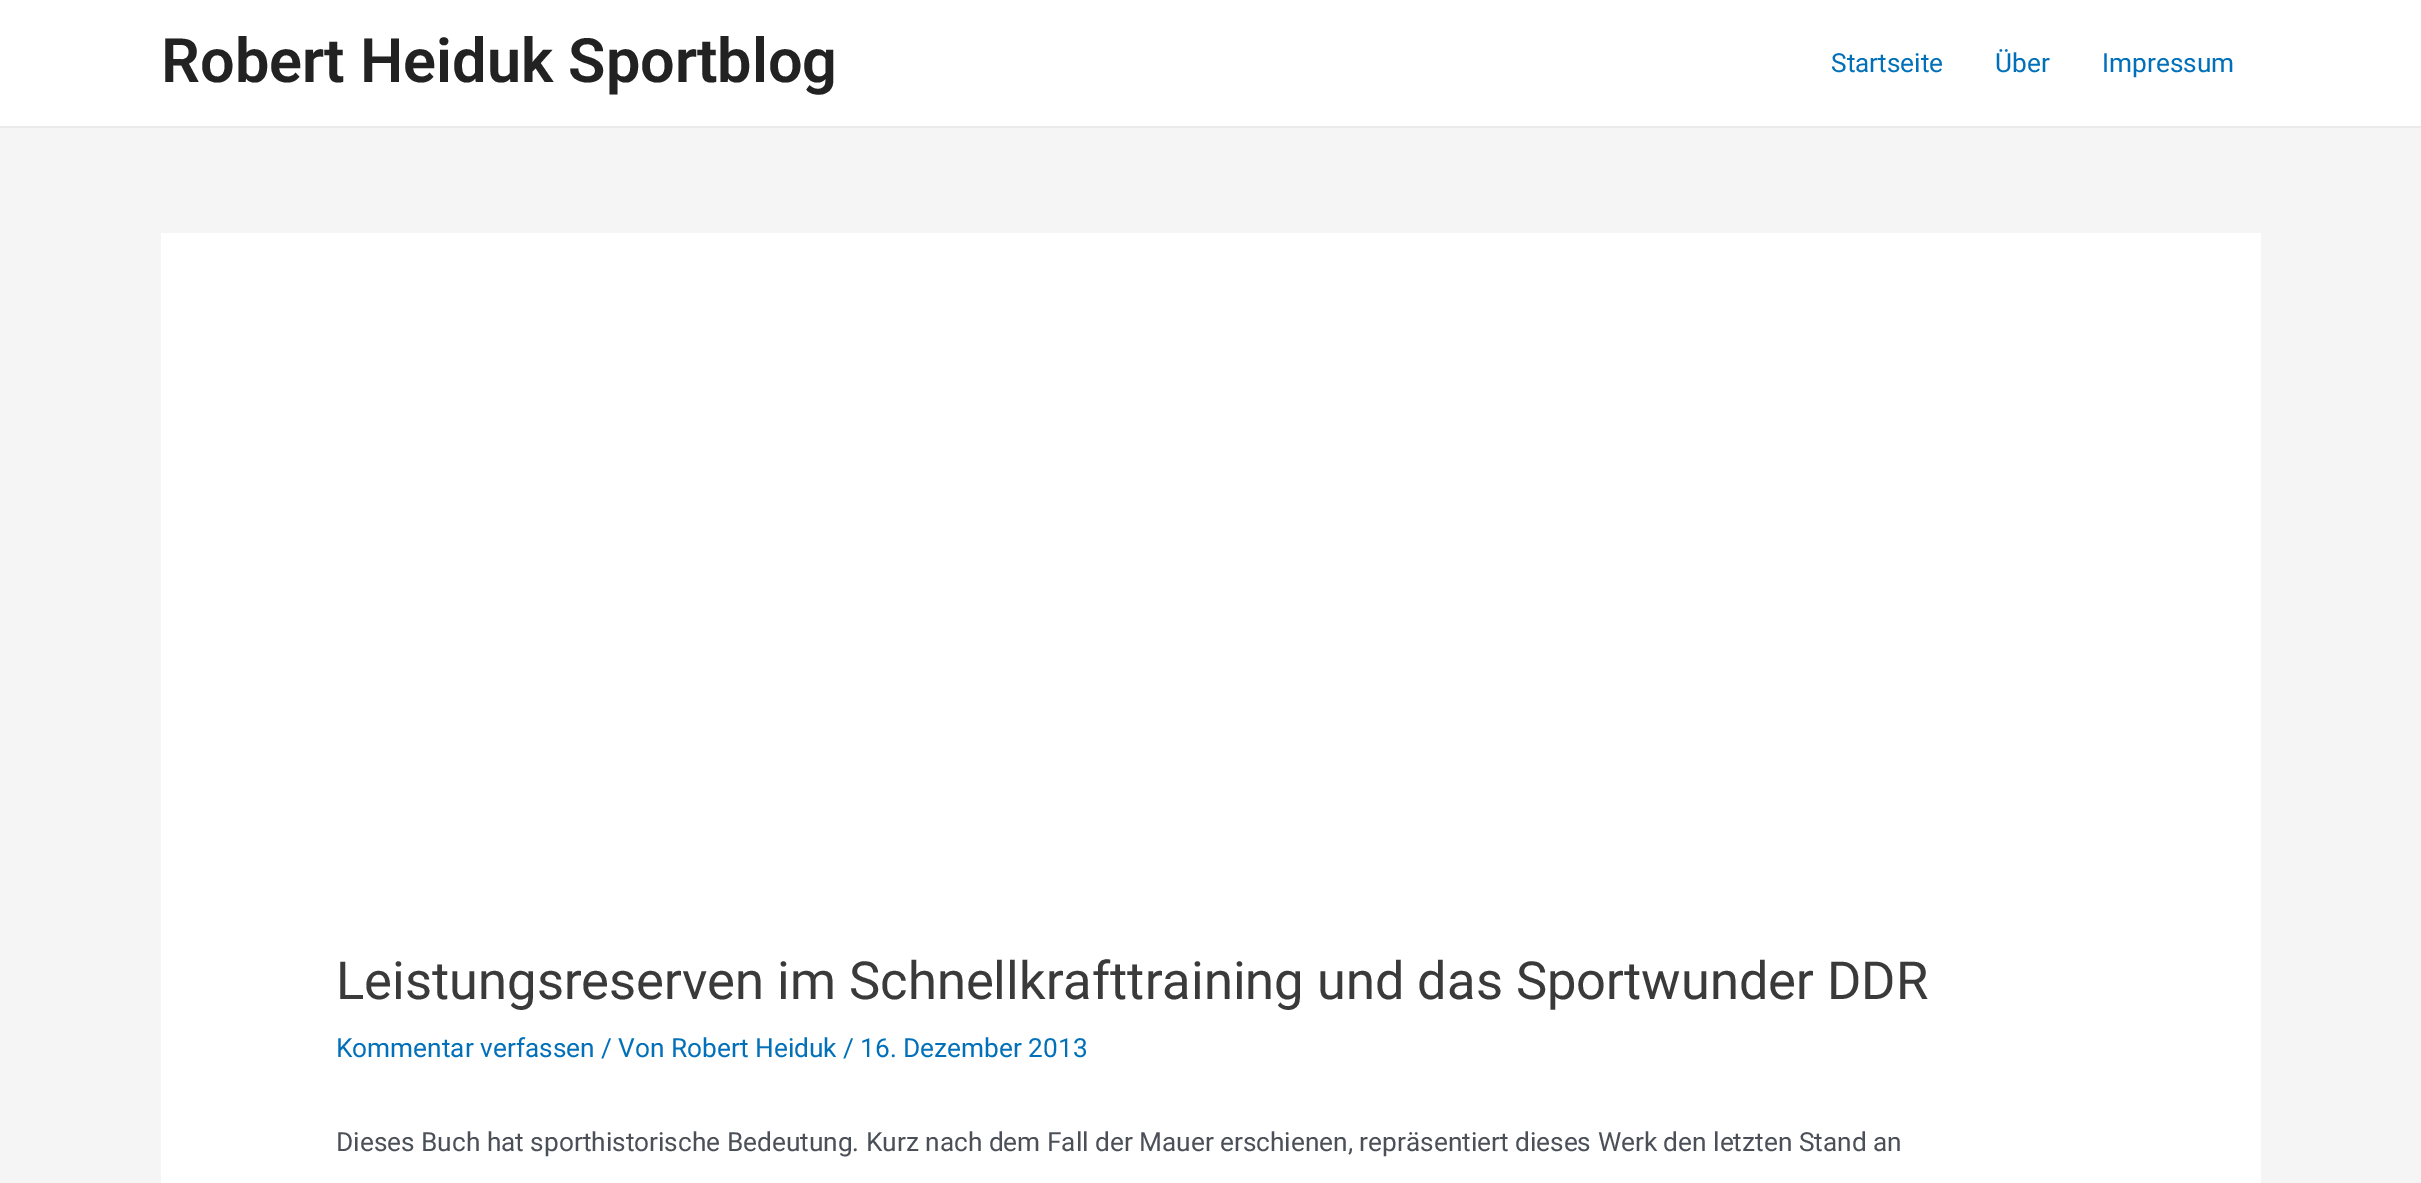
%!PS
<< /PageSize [2421 1183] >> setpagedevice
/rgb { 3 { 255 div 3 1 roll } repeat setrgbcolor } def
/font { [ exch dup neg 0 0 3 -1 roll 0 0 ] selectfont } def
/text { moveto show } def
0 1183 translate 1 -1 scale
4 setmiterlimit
245 245 245 rgb
0 0 2421 1183 rectfill
255 255 255 rgb
0 0 2421 126 rectfill
234 234 234 rgb
0 126 2421 2 rectfill
255 255 255 rgb
161 233 2100 950 rectfill
/Roboto-SemiBold 61.25 font
34 34 34 rgb
(Robert Heiduk Sportblog) 161 82 text
/Roboto-Regular 26.25 font
1 112 185 rgb
(Startseite) 1831 72 text
(Über) 1995 72 text
(Impressum) 2102 72 text
/Roboto-Regular 52.5 font
58 58 58 rgb
(Leistungsreserven im Schnellkrafttraining und das Sportwunder DDR) 336 999 text
/Roboto-Regular 26.25 font
1 112 185 rgb
(Kommentar verfassen / Von Robert Heiduk / 16. Dezember 2013) 336 1057 text
75 79 88 rgb
(Dieses Buch hat sporthistorische Bedeutung. Kurz nach dem Fall der Mauer erschienen, repräsentiert dieses Werk den letzten Stand an) 336 1151 text
showpage
